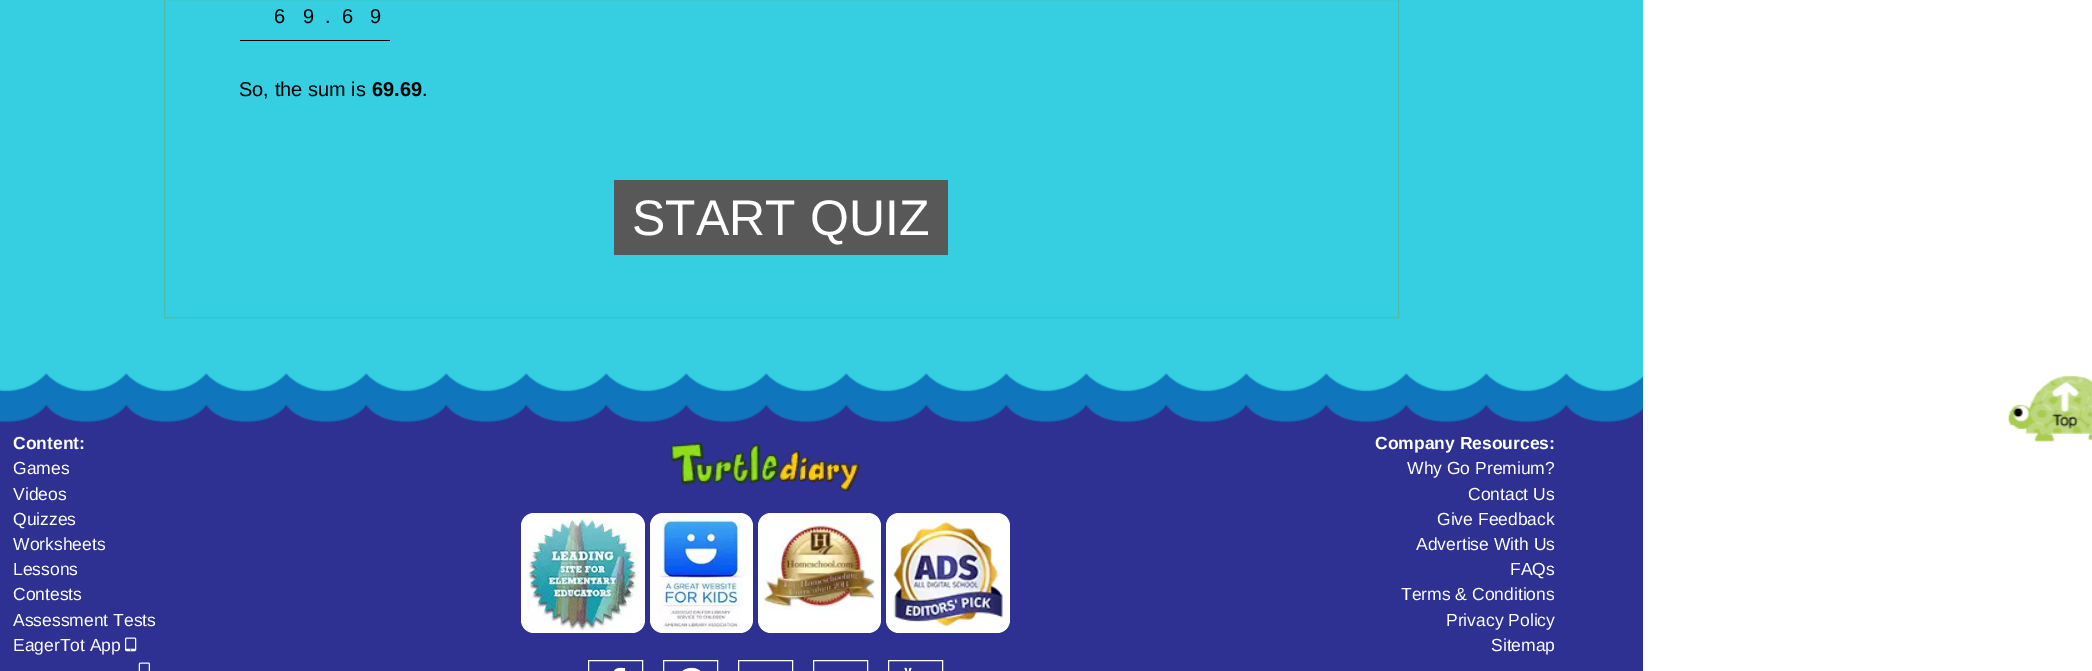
%!PS
<< /PageSize [2092 671] >> setpagedevice
/rgb { 3 { 255 div 3 1 roll } repeat setrgbcolor } def
/font { [ exch dup neg 0 0 3 -1 roll 0 0 ] selectfont } def
/text { moveto show } def
/roundrect { 5 dict begin { /r /h /w /y /x } { exch def } forall
  x r add y moveto x w add y 2 copy h add r arct x w add y h add x 1 index r arct
  x y h add x y r arct x y 2 copy exch w add exch r arct closepath end } def
/picture { 5 dict begin { /h /w /y /x /name } { exch def } forall
  gsave x y translate w h scale
  w h 8 [w 0 0 h 0 0] name (r) file false 3 colorimage grestore end } def
0 671 translate 1 -1 scale
4 setmiterlimit
53 207 225 rgb
0 0 2092 671 rectfill
76 190 167 rgb
164.5 -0.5 1234 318 rectstroke
0 0 0 rgb
240 40 150 1 rectfill
88 88 88 rgb
614 180 334 75 rectfill
255 255 255 rgb
1643 0 449 671 rectfill
(img_01.rgb) 2008 375 84 67 picture
46 49 146 rgb
0 404 1643 267 rectfill
(img_02.rgb) 0 373 1643 50 picture
(img_03.rgb) 125 637 12 15 picture
(img_04.rgb) 138 662 12 9 picture
(img_05.rgb) 671 442 189 49 picture
255 255 255 rgb
521 513 124 120 13 roundrect fill
(img_06.rgb) 527 518 112 113 picture
650 513 103 120 13 roundrect fill
(img_07.rgb) 657 518 86 112 picture
758 513 123 120 13 roundrect fill
(img_08.rgb) 763 519 112 91 picture
886 513 124 120 13 roundrect fill
(img_09.rgb) 893 522 110 105 picture
588.5 660.5 54 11 rectstroke
(img_10.rgb) 613 667 13 4 picture
663.5 660.5 54 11 rectstroke
(img_11.rgb) 682 667 19 4 picture
738.5 660.5 54 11 rectstroke
813.5 660.5 54 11 rectstroke
888.5 660.5 54 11 rectstroke
(img_12.rgb) 904 667 8 4 picture
/LiberationSans-Regular 20 font
0 0 0 rgb
(6) 274 23 text
(9) 303 23 text
(.) 325 23 text
(6) 342 23 text
(9) 370 23 text
(So, the sum is) 239 96 text
/LiberationSans-Bold 20 font
(69.69) 372 96 text
/LiberationSans-Regular 20 font
(.) 422 96 text
/LiberationSans-Regular 50 font
255 255 255 rgb
(START QUIZ) 632 235 text
/LiberationSans-Bold 17.5 font
(Content:) 13 449 text
/LiberationSans-Regular 17.5 font
(Games) 13 474 text
(Videos) 13 500 text
(Quizzes) 13 525 text
(Worksheets) 13 550 text
(Lessons) 13 575 text
(Contests) 13 600 text
(Assessment Tests) 13 626 text
(EagerTot App) 13 651 text
/LiberationSans-Bold 17.5 font
(Company Resources:) 1375 449 text
/LiberationSans-Regular 17.5 font
(Why Go Premium?) 1407 474 text
(Contact Us) 1468 500 text
(Give Feedback) 1437 525 text
(Advertise With Us) 1416 550 text
(FAQs) 1510 575 text
(Terms & Conditions) 1401 600 text
(Privacy Policy) 1446 626 text
(Sitemap) 1491 651 text
showpage
